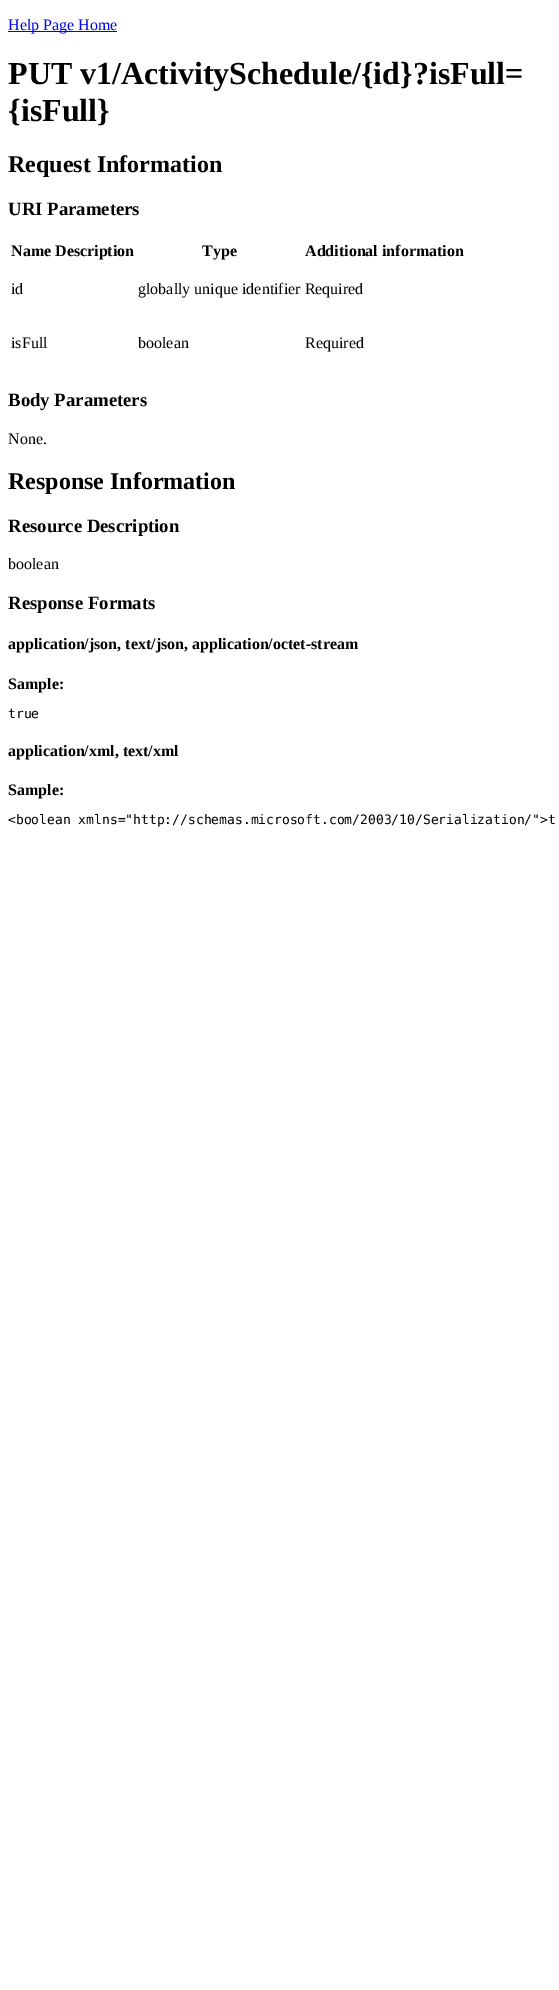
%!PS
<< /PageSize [559 1990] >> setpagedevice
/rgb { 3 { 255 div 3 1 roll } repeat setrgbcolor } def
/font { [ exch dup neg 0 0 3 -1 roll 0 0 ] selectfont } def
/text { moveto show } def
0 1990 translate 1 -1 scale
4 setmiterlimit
255 255 255 rgb
0 0 559 1990 rectfill
0 0 238 rgb
8 31 109 1 rectfill
/LiberationSerif-Regular 16 font
(Help Page Home) 8 30 text
/LiberationSerif-Bold 32 font
0 0 0 rgb
(PUT v1/ActivitySchedule/{id}?isFull=) 8 84 text
({isFull}) 8 121 text
/LiberationSerif-Bold 24 font
(Request Information) 8 172 text
/LiberationSerif-Bold 18.75 font
(URI Parameters) 8 215 text
/LiberationSerif-Bold 16 font
(Name Description) 11 256 text
(Type) 202 256 text
(Additional information) 305 256 text
/LiberationSerif-Regular 16 font
(id) 11 294 text
(globally unique identifier Required) 138 294 text
(isFull) 11 348 text
(boolean) 138 348 text
(Required) 305 348 text
/LiberationSerif-Bold 18.75 font
(Body Parameters) 8 406 text
/LiberationSerif-Regular 16 font
(None.) 8 444 text
/LiberationSerif-Bold 24 font
(Response Information) 8 489 text
/LiberationSerif-Bold 18.75 font
(Resource Description) 8 532 text
/LiberationSerif-Regular 16 font
(boolean) 8 569 text
/LiberationSerif-Bold 18.75 font
(Response Formats) 8 609 text
/LiberationSerif-Bold 16 font
(application/json, text/json, application/octet-stream) 8 649 text
(Sample:) 8 689 text
/DejaVuSansMono-Regular 13 font
(true) 8 718 text
/LiberationSerif-Bold 16 font
(application/xml, text/xml) 8 756 text
(Sample:) 8 795 text
/DejaVuSansMono-Regular 13 font
(<boolean xmlns="http://schemas.microsoft.com/2003/10/Serialization/">t) 8 824 text
showpage
